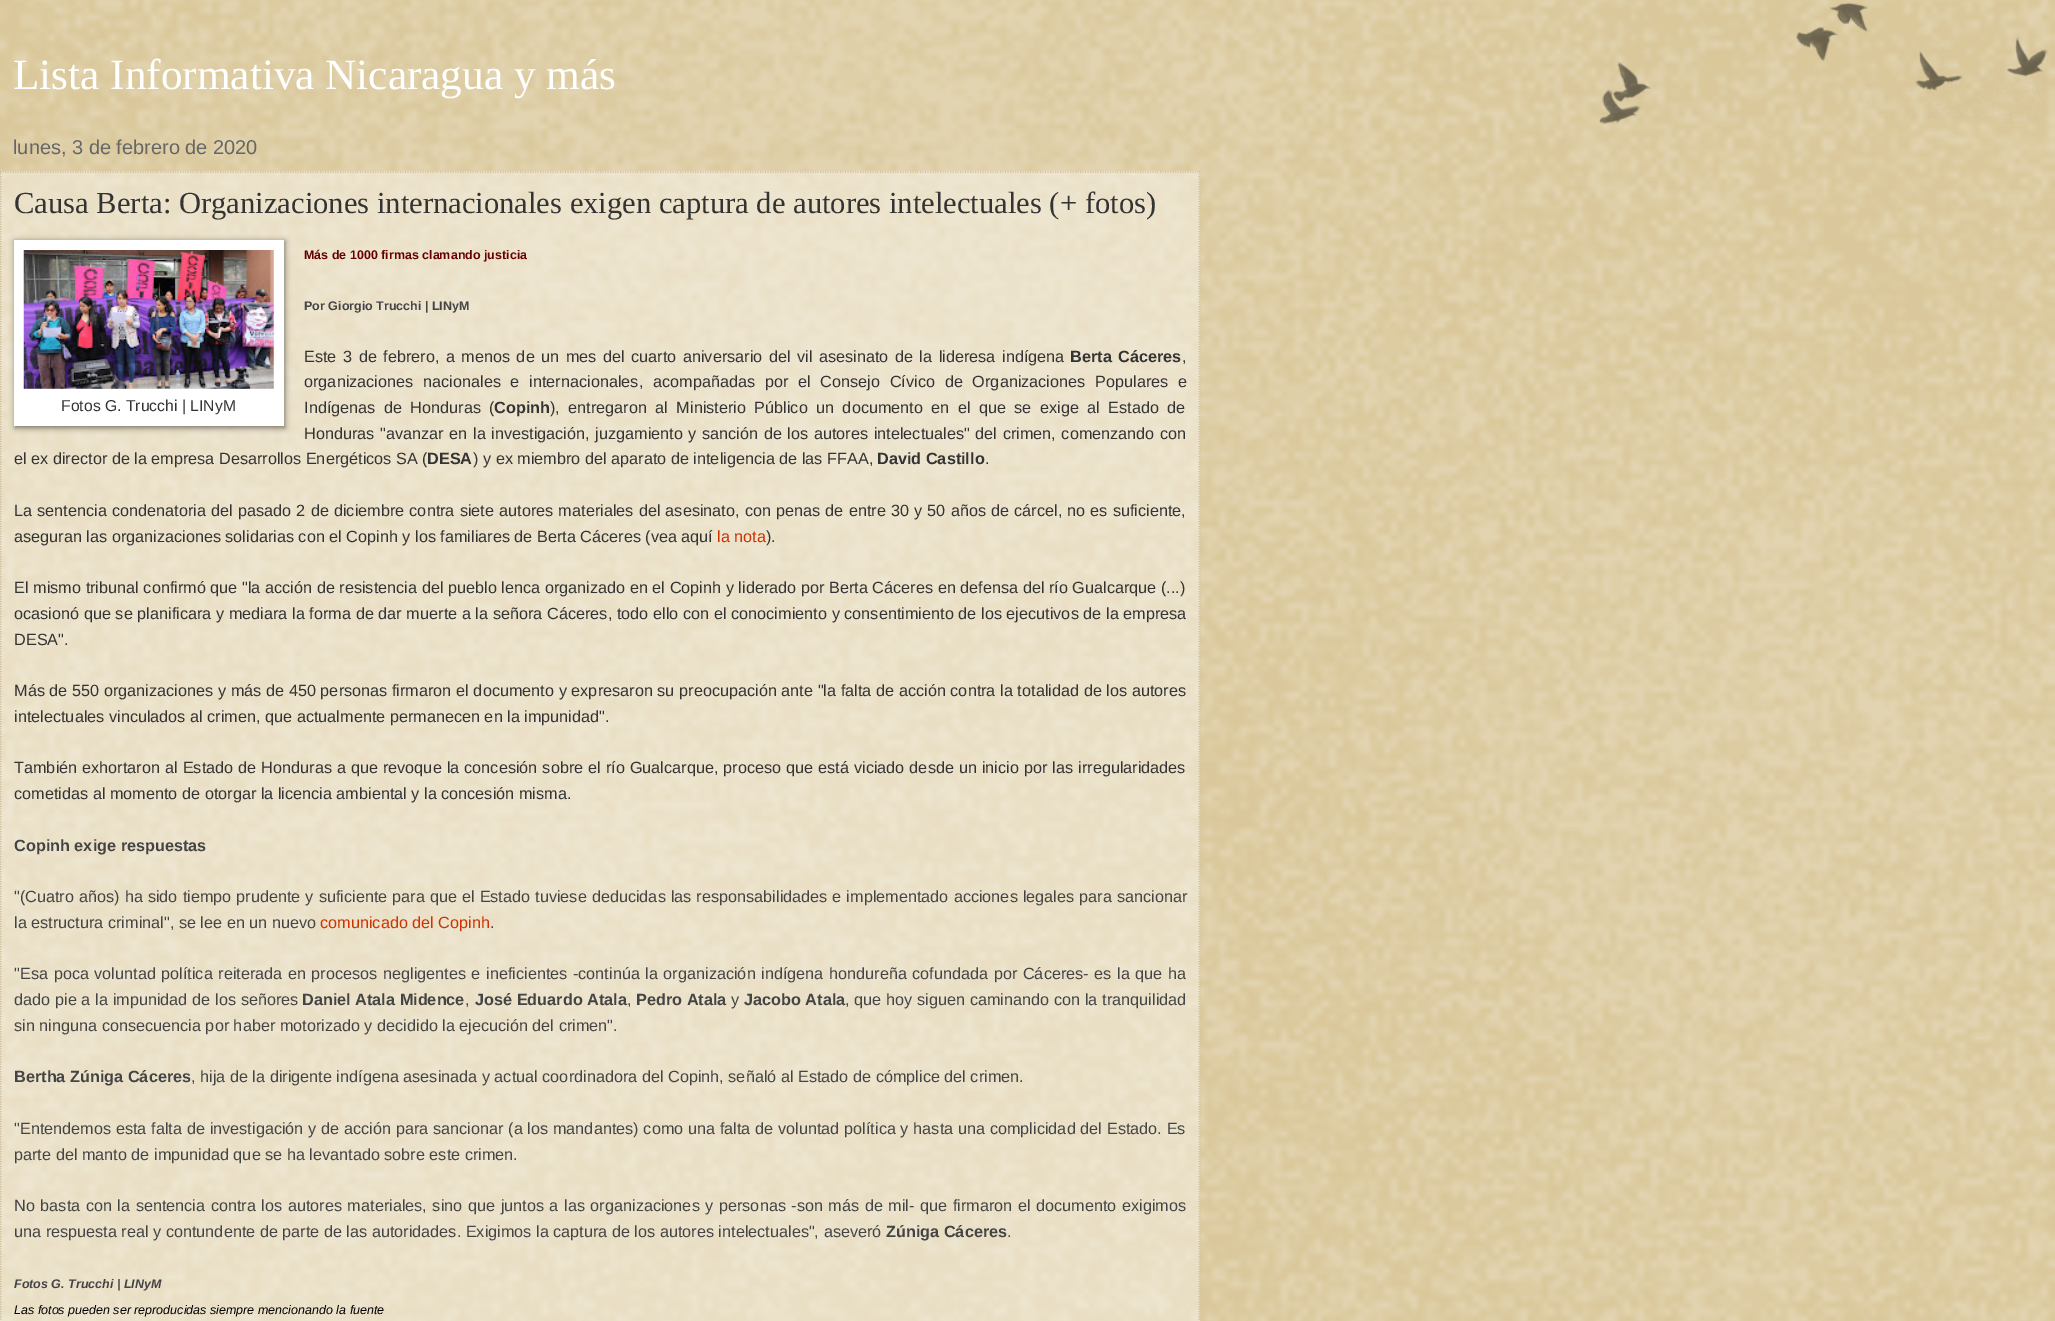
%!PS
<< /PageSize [2055 1321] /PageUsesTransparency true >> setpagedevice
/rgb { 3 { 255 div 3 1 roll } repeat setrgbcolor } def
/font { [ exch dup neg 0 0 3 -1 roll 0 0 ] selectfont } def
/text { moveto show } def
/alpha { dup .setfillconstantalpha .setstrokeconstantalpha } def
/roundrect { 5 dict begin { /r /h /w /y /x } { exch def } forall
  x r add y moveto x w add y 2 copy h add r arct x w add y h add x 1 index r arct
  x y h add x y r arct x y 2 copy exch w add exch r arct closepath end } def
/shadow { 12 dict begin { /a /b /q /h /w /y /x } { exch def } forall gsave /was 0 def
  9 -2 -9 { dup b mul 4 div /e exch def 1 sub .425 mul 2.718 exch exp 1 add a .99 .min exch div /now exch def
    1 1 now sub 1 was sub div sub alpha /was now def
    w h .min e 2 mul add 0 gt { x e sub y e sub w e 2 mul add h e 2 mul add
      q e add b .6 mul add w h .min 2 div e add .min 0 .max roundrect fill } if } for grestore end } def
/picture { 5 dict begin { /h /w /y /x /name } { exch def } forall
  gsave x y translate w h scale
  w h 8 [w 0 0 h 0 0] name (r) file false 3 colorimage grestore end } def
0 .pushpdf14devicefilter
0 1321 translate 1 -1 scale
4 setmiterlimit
192 161 84 rgb
0 0 2055 1321 rectfill
(img_01.rgb) 0 0 2055 1321 picture
0.4 alpha
255 255 255 rgb
0 171 1200 1150 rectfill
1 alpha
204 187 153 rgb
1.2 setlinewidth
[1.25 1.25] 0 setdash
0 172 moveto 1200 0 rlineto stroke
1199.5 171 moveto 0 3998 rlineto stroke
0.5 171 moveto 0 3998 rlineto stroke
0 0 0 rgb
15 241 270 187 0 3 0.5 shadow
255 255 255 rgb
14 240 270 186 rectfill
(img_02.rgb) 23 250 251 139 picture
(img_03.rgb) 1599 2 449 122 picture
/LiberationSerif-Regular 43.25 font
(Lista Informativa Nicaragua y más) 13 89 text
/LiberationSans-Regular 20 font
102 102 102 rgb
(lunes, 3 de febrero de 2020) 13 154 text
/LiberationSerif-Regular 30.6 font
51 51 51 rgb
(Causa Berta: Organizaciones internacionales exigen captura de autores intelectuales \(+ fotos\)) 14 213 text
/LiberationSans-Bold 12.5 font
102 0 0 rgb
(Más de 1000 firmas clamando justicia) 304 259 text
68 68 68 rgb
(Por Giorgio Trucchi | LINyM) 304 310 text
/LiberationSans-Regular 16.25 font
51 51 51 rgb
304 362 moveto 2 0 32 (Este 3 de febrero, a menos de un mes del cuarto aniversario del vil asesinato de la lideresa indígena) widthshow
/LiberationSans-Bold 16.25 font
1070 362 moveto 2 0 32 (Berta Cáceres) widthshow
/LiberationSans-Regular 16.25 font
(,) 1182 362 text
304 387 moveto 5.25 0 32 (organizaciones nacionales e internacionales, acompañadas por el Consejo Cívico de Organizaciones Populares e) widthshow
304 413 moveto 3.9 0 32 (Indígenas de Honduras \() widthshow
/LiberationSans-Bold 16.25 font
(Copinh) 494 413 text
/LiberationSans-Regular 16.25 font
550 413 moveto 3.9 0 32 (\), entregaron al Ministerio Público un documento en el que se exige al Estado de) widthshow
304 439 moveto 1.1 0 32 (Honduras "avanzar en la investigación, juzgamiento y sanción de los autores intelectuales" del crimen, comenzando con) widthshow
(el ex director de la empresa Desarrollos Energéticos SA \() 14 464 text
/LiberationSans-Bold 16.25 font
(DESA) 427 464 text
/LiberationSans-Regular 16.25 font
(\) y ex miembro del aparato de inteligencia de las FFAA,) 473 464 text
/LiberationSans-Bold 16.25 font
(David Castillo) 877 464 text
/LiberationSans-Regular 16.25 font
(.) 985 464 text
/LiberationSans-Regular 15.75 font
(Fotos G. Trucchi | LINyM) 61 411 text
/LiberationSans-Regular 16.25 font
14 516 moveto 0.65 0 32 (La sentencia condenatoria del pasado 2 de diciembre contra siete autores materiales del asesinato, con penas de entre 30 y 50 años de cárcel, no es suficiente,) widthshow
(aseguran las organizaciones solidarias con el Copinh y los familiares de Berta Cáceres \(vea aquí) 14 542 text
204 51 0 rgb
(la nota) 717 542 text
51 51 51 rgb
(\).) 766 542 text
14 593 moveto 0.1 0 32 (El mismo tribunal confirmó que "la acción de resistencia del pueblo lenca organizado en el Copinh y liderado por Berta Cáceres en defensa del río Gualcarque \(...\)) widthshow
14 619 moveto 0.15 0 32 (ocasionó que se planificara y mediara la forma de dar muerte a la señora Cáceres, todo ello con el conocimiento y consentimiento de los ejecutivos de la empresa) widthshow
(DESA".) 14 645 text
14 696 moveto 0.15 0 32 (Más de 550 organizaciones y más de 450 personas firmaron el documento y expresaron su preocupación ante "la falta de acción contra la totalidad de los autores) widthshow
(intelectuales vinculados al crimen, que actualmente permanecen en la impunidad".) 14 722 text
14 773 moveto 0.5 0 32 (También exhortaron al Estado de Honduras a que revoque la concesión sobre el río Gualcarque, proceso que está viciado desde un inicio por las irregularidades) widthshow
(cometidas al momento de otorgar la licencia ambiental y la concesión misma.) 14 799 text
/LiberationSans-Bold 16.25 font
68 68 68 rgb
(Copinh exige respuestas) 14 851 text
/LiberationSans-Regular 16.25 font
14 902 moveto 0.5 0 32 ("\(Cuatro años\) ha sido tiempo prudente y suficiente para que el Estado tuviese deducidas las responsabilidades e implementado acciones legales para sancionar) widthshow
(la estructura criminal", se lee en un nuevo) 14 928 text
204 51 0 rgb
(comunicado del Copinh) 320 928 text
68 68 68 rgb
(.) 490 928 text
(") 14 979 text
20 979 moveto 1 0 32 (Esa poca voluntad política reiterada en procesos negligentes e) widthshow
486 979 moveto 1.05 0 32 (ineficientes -continúa la organización indígena hondureña cofundada por Cáceres- es la que ha) widthshow
14 1005 moveto 0.25 0 32 (dado pie a la impunidad de los señores) widthshow
/LiberationSans-Bold 16.25 font
(Daniel Atala Midence) 302 1005 text
/LiberationSans-Regular 16.25 font
(,) 465 1005 text
/LiberationSans-Bold 16.25 font
(José Eduardo Atala) 475 1005 text
/LiberationSans-Regular 16.25 font
(,) 627 1005 text
/LiberationSans-Bold 16.25 font
(Pedro Atala) 636 1005 text
/LiberationSans-Regular 16.25 font
(y) 731 1005 text
/LiberationSans-Bold 16.25 font
(Jacobo Atala) 744 1005 text
/LiberationSans-Regular 16.25 font
(, que hoy) 845 1005 text
917 1005 moveto 0.25 0 32 (siguen caminando con la tranquilidad) widthshow
(sin ninguna consecuencia por haber motorizado y decidido la ejecución del crimen".) 14 1031 text
/LiberationSans-Bold 16.25 font
(Bertha Zúniga Cáceres) 14 1082 text
/LiberationSans-Regular 16.25 font
(, hija de la dirigente indígena asesinada y actual coordinadora del Copinh, señaló al Estado de cómplice del crimen.) 191 1082 text
14 1134 moveto 0.25 0 32 ("Entendemos esta falta de investigación y de acción para sancionar \(a los mandantes\) como una falta de voluntad política y hasta una complicidad del Estado. Es) widthshow
(parte del manto de impunidad que se ha levantado sobre este crimen.) 14 1160 text
14 1211 moveto 1.05 0 32 (No basta con la sentencia contra los autores materiales, sino que juntos a las organizaciones y personas -son más de mil- que firmaron el documento exigimos) widthshow
(una respuesta real y contundente de parte de las autoridades. Exigimos la captura de los autores intelectuales", aseveró) 14 1237 text
/LiberationSans-Bold 16.25 font
(Zúniga Cáceres) 886 1237 text
/LiberationSans-Regular 16.25 font
(.) 1007 1237 text
/LiberationSans-BoldItalic 12.5 font
(Fotos G. Trucchi | LINyM) 14 1288 text
/LiberationSans-Italic 12.5 font
0 0 0 rgb
(Las fotos pueden ser reproducidas siempre mencionando la fuente) 14 1314 text
.poppdf14devicefilter showpage
